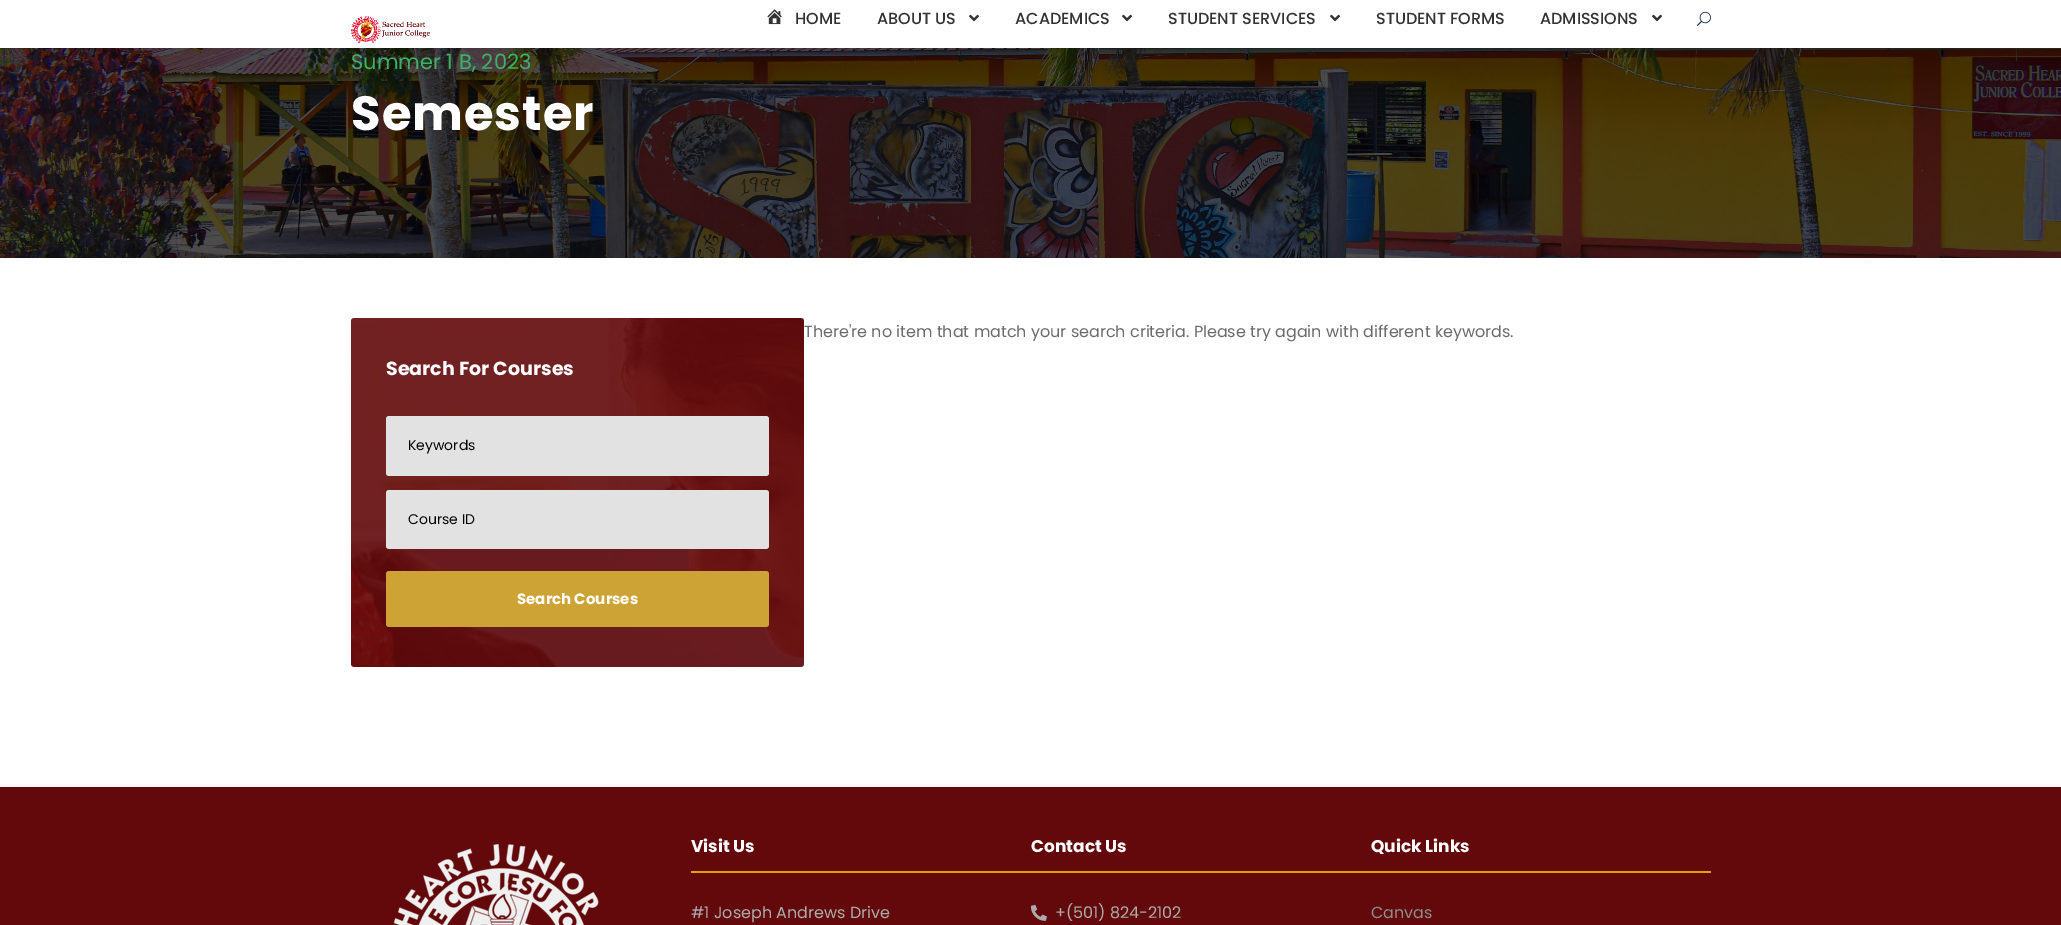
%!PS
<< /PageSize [2061 925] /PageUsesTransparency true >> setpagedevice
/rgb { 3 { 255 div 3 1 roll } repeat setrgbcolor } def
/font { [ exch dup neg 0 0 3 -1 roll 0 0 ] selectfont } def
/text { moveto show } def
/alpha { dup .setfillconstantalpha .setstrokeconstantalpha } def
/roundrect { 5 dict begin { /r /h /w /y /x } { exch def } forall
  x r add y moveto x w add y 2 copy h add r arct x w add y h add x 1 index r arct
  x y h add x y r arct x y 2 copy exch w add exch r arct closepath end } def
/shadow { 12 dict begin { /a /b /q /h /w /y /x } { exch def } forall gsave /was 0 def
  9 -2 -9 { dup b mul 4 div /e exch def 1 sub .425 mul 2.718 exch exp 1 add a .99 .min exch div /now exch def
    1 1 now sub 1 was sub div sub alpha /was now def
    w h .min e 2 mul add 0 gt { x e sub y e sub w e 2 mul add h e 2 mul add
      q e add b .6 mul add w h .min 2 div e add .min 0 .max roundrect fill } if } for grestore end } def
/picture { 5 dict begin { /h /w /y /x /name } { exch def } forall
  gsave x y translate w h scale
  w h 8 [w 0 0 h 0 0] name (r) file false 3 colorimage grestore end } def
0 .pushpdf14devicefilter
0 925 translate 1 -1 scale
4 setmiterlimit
255 255 255 rgb
0 0 2061 925 rectfill
(img_05.rgb) 0 48 2061 210 picture
0 0 0 rgb
0 1 2061 48 0 2 0.1 shadow
255 255 255 rgb
0 0 2061 48 rectfill
(img_01.rgb) 350 16 80 27 picture
(img_02.rgb) 767 9 15 16 picture
(img_03.rgb) 969 14 10 8 picture
(img_03.rgb) 1122 14 10 8 picture
(img_03.rgb) 1330 14 10 8 picture
(img_03.rgb) 1652 14 10 8 picture
(img_04.rgb) 1697 11 14 15 picture
(img_06.rgb) 351 318 453 349 picture
226 226 226 rgb
386 416 383 60 3 roundrect fill
386 490 383 59 3 roundrect fill
206 163 53 rgb
386 571 383 56 3 roundrect fill
99 9 11 rgb
0 787 2061 138 rectfill
(img_07.rgb) 393 844 206 81 picture
225 165 0 rgb
691 871 1020 2 rectfill
(img_08.rgb) 1030 904 17 17 picture
/Poppins-Medium 16 font
51 51 51 rgb
(HOME) 795 24 text
(ABOUT US) 877 24 text
(ACADEMICS) 1015 24 text
(STUDENT SERVICES) 1168 24 text
(STUDENT FORMS) 1376 24 text
(ADMISSIONS) 1540 24 text
/Poppins-Regular 21 font
61 177 102 rgb
(Summer 1 B, 2023) 351 69 text
/Poppins-Bold 48 font
255 255 255 rgb
351 130 moveto 1 0 (Semester) ashow
/Poppins-Regular 16 font
107 107 107 rgb
(There're no item that match your search criteria. Please try again with different keywords.) 804 337 text
/Poppins-Bold 19 font
255 255 255 rgb
(Search For Courses) 386 375 text
/Poppins-Regular 14 font
5 5 5 rgb
(Keywords) 408 450 text
(Course ID) 408 524 text
/Poppins-Bold 15 font
255 255 255 rgb
(Search Courses) 517 604 text
/Poppins-Bold 17 font
(Visit Us) 691 852 text
/Poppins-Regular 16 font
171 171 171 rgb
(#1 Joseph Andrews Drive) 691 918 text
/Poppins-Bold 17 font
255 255 255 rgb
(Contact Us) 1031 852 text
/Poppins-Regular 16 font
171 171 171 rgb
(+\(501\) 824-2102) 1055 918 text
/Poppins-Bold 17 font
255 255 255 rgb
(Quick Links) 1371 852 text
/Poppins-Regular 16 font
141 141 141 rgb
(Canvas) 1371 918 text
.poppdf14devicefilter showpage
